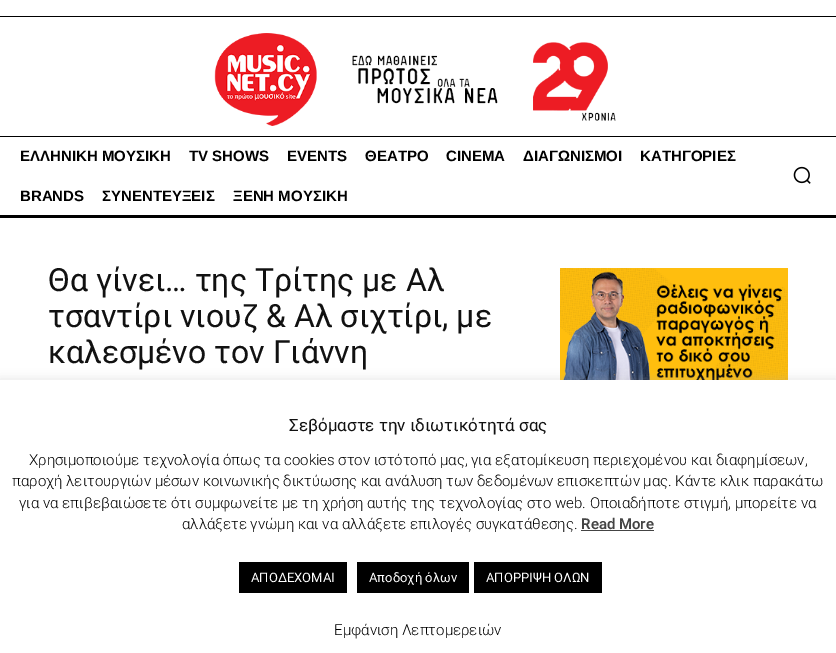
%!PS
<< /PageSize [836 653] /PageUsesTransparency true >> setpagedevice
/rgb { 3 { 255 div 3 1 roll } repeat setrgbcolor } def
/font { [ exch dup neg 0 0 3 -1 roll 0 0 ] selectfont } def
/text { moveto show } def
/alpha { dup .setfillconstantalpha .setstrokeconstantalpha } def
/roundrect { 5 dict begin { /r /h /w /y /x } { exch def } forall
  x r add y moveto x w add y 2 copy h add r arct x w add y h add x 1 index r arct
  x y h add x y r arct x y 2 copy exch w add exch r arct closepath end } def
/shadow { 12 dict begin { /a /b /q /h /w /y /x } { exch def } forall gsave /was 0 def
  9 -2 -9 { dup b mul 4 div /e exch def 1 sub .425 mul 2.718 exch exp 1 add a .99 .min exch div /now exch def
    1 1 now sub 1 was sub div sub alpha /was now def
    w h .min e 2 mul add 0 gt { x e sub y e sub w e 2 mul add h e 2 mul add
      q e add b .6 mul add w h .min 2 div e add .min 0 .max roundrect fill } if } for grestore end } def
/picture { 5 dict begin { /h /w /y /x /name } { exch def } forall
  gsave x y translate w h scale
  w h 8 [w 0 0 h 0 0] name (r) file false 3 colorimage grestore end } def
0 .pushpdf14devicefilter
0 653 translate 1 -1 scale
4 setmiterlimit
255 255 255 rgb
0 0 836 653 rectfill
0 0 0 rgb
0 16 836 1 rectfill
(img_01.rgb) 214 33 402 93 picture
0 136 836 1 rectfill
0 215 836 3 rectfill
(img_02.rgb) 793 166 18 18 picture
(img_03.rgb) 560 268 228 112 picture
172 171 171 rgb
0 379 836 273 0 5 0.3 shadow
255 255 255 rgb
0 380 836 273 rectfill
68 68 68 rgb
581 530 73 1 rectfill
0 0 0 rgb
239 562 108 31 rectfill
357 562 112 31 rectfill
474 562 128 31 rectfill
/LiberationSans-Bold 15 font
(ΕΛΛΗΝΙΚΗ ΜΟΥΣΙΚΗ) 20 161 text
(TV SHOWS) 189 161 text
(EVENTS) 287 161 text
(ΘΕΑΤΡΟ) 365 161 text
(CINEMA) 446 161 text
(ΔΙΑΓΩΝΙΣΜΟΙ) 523 161 text
(ΚΑΤΗΓΟΡΙΕΣ) 640 161 text
(BRANDS) 20 201 text
(ΣΥΝΕΝΤΕΥΞΕΙΣ) 102 201 text
(ΞΕΝΗ ΜΟΥΣΙΚΗ) 233 201 text
/Roboto-Regular 32 font
17 17 17 rgb
(Θα γίνει… της Τρίτης με Αλ) 48 291 text
(τσαντίρι νιουζ & Αλ σιχτίρι, με) 48 327 text
(καλεσμένο τον Γιάννη) 48 363 text
/Roboto-Regular 17 font
(Σεβόμαστε την ιδιωτικότητά σας) 289 431 text
/Roboto-Light 15 font
0 0 0 rgb
(Χρησιμοποιούμε τεχνολογία όπως τα cookies στον ιστότοπό μας, για εξατομίκευση περιεχομένου και διαφημίσεων,) 29 465 text
(παροχή λειτουργιών μέσων κοινωνικής δικτύωσης και ανάλυση των δεδομένων επισκεπτών μας. Κάντε κλικ παρακάτω) 12 486 text
(για να επιβεβαιώσετε ότι συμφωνείτε με τη χρήση αυτής της τεχνολογίας στο web. Οποιαδήποτε στιγμή, μπορείτε να) 19 508 text
(αλλάξετε γνώμη και να αλλάξετε επιλογές συγκατάθεσης.) 182 529 text
/Roboto-SemiBold 15 font
68 68 68 rgb
(Read More) 581 529 text
/Roboto-Regular 13 font
255 255 255 rgb
(ΑΠΟΔΕΧΟΜΑΙ) 251 582 text
(Αποδοχή όλων) 369 582 text
(ΑΠΟΡΡΙΨΗ ΟΛΩΝ) 486 582 text
/Roboto-Light 15 font
0 0 0 rgb
(Εμφάνιση Λεπτομερειών) 334 635 text
.poppdf14devicefilter showpage
